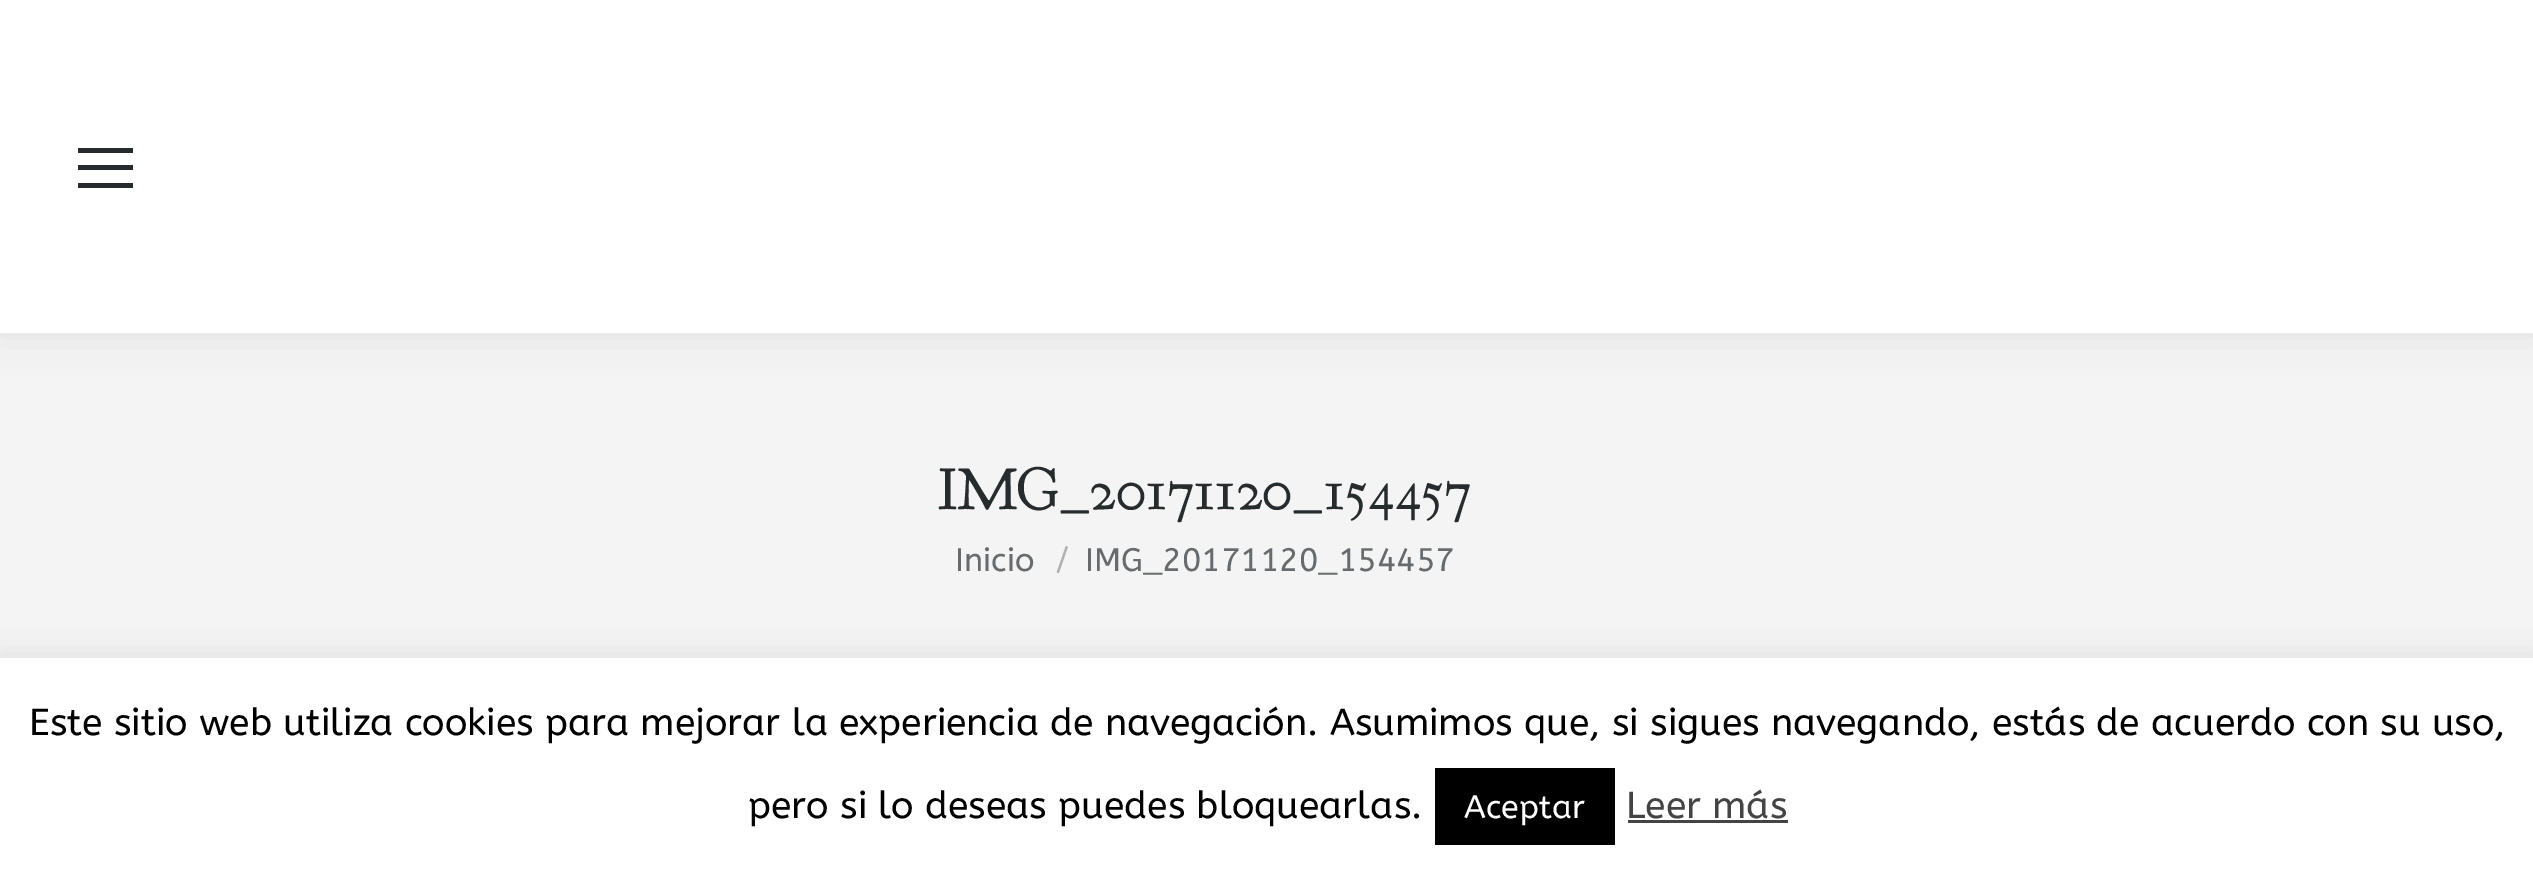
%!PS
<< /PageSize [2533 873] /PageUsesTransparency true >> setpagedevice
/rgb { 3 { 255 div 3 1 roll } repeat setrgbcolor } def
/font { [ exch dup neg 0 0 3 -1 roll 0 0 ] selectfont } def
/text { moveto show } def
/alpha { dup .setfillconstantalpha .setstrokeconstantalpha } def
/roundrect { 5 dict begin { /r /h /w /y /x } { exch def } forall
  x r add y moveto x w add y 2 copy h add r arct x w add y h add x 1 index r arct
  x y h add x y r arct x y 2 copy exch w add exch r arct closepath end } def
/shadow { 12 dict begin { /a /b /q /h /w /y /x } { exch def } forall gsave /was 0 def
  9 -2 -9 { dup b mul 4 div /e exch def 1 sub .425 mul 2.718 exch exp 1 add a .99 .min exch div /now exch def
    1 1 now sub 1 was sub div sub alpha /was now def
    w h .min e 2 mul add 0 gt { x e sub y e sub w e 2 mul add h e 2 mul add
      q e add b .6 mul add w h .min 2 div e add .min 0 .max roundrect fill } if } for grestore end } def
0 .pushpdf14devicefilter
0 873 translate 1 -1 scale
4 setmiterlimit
244 244 244 rgb
0 0 2533 873 rectfill
0 0 0 rgb
-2 -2 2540 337 0 19 0.07 shadow
255 255 255 rgb
0 0 2533 333 rectfill
38 43 46 rgb
78 148 55 5 rectfill
78 165 55 5 rectfill
78 183 55 5 rectfill
172 171 171 rgb
0 655 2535 218 0 12.5 0.3 shadow
255 255 255 rgb
0 658 2533 215 rectfill
0 0 0 rgb
1435 768 180 77 rectfill
68 68 68 rgb
1628 820 160 3 rectfill
/GoudyBookletter1911-Regular 60 font
38 43 46 rgb
(IMG_20171120_154457) 938 509 text
/ABeeZee-Regular 32.5 font
103 107 109 rgb
(Inicio) 955 571 text
174 176 177 rgb
(/) 1055 571 text
103 107 109 rgb
(IMG_20171120_154457) 1085 571 text
/ABeeZee-Regular 37.5 font
0 0 0 rgb
(Este sitio web utiliza cookies para mejorar la experiencia de navegación. Asumimos que, si sigues navegando, estás de acuerdo con su uso,) 29 735 text
(pero si lo deseas puedes bloquearlas.) 748 818 text
/ABeeZee-Regular 32.5 font
255 255 255 rgb
(Aceptar) 1464 818 text
/ABeeZee-Regular 37.5 font
68 68 68 rgb
(Leer más) 1626 818 text
.poppdf14devicefilter showpage
